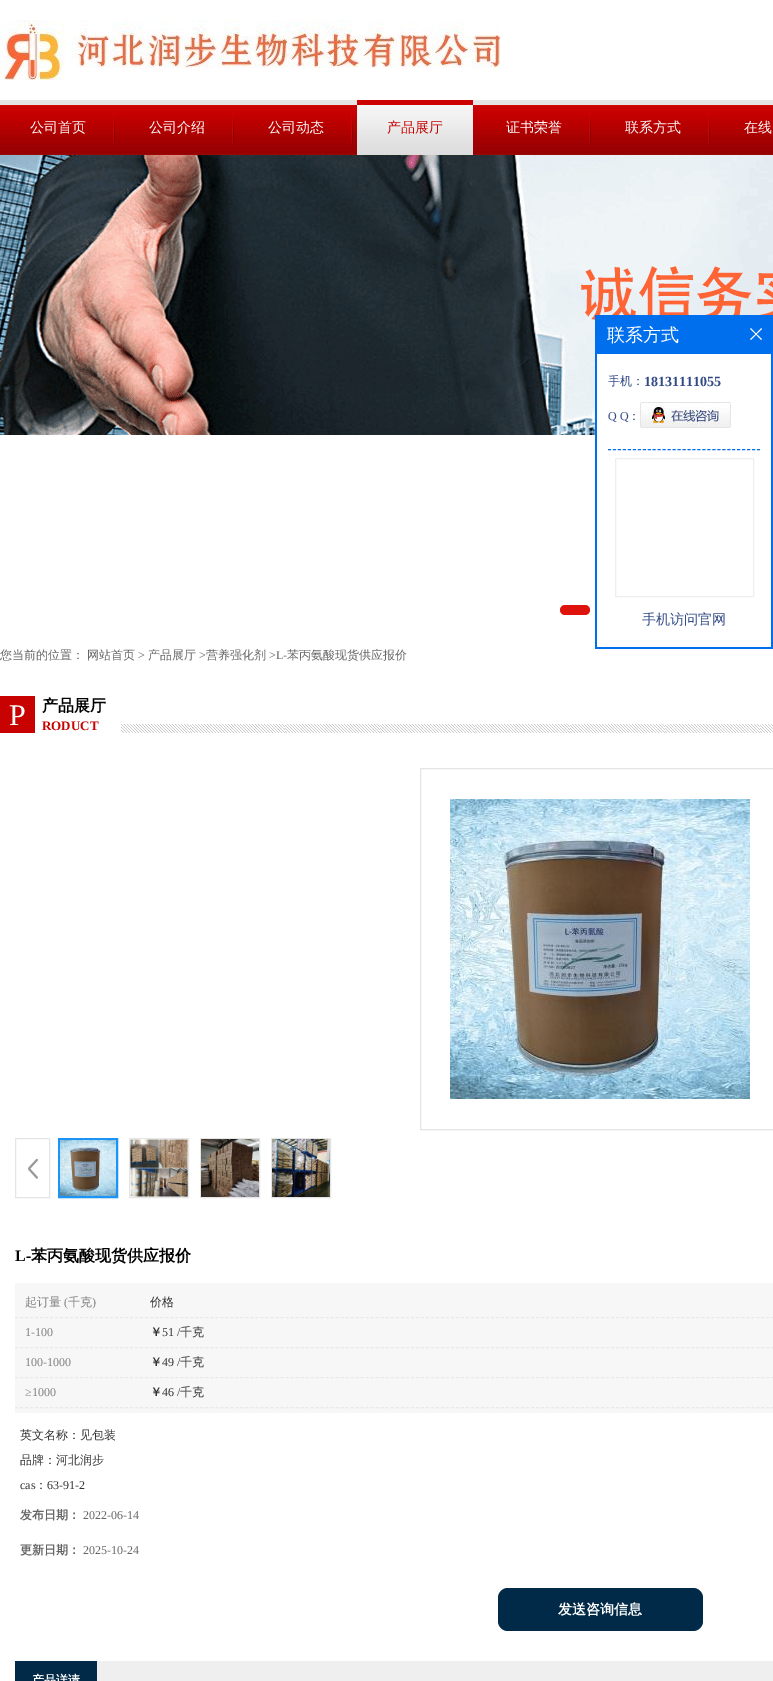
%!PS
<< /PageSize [773 1681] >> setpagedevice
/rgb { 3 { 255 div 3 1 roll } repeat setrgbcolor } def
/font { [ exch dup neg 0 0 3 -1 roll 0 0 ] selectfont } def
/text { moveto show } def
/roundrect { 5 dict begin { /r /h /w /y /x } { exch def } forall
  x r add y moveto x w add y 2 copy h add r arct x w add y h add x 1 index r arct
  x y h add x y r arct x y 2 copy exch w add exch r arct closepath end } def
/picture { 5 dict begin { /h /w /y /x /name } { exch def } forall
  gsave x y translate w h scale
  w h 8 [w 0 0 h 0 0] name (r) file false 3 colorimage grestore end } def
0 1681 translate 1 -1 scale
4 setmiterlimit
255 255 255 rgb
0 0 773 1681 rectfill
(img_01.rgb) 0 20 500 60 picture
(img_02.rgb) 0 100 773 55 picture
(img_03.rgb) 113 110 3 38 picture
(img_03.rgb) 232 110 3 38 picture
(img_03.rgb) 351 110 3 38 picture
(img_04.rgb) 357 100 116 55 picture
(img_03.rgb) 589 110 3 38 picture
(img_03.rgb) 708 110 3 38 picture
(img_05.rgb) 0 155 773 280 picture
222 19 12 rgb
560 605 30 10 5 roundrect fill
0 111 237 rgb
595 315 178 334 rectfill
(img_06.rgb) 750 328 12 12 picture
255 255 255 rgb
597 354 174 293 rectfill
0 111 237 rgb
[3 1.97] 0 setdash
608 449.5 moveto 152 0 rlineto stroke
(img_07.rgb) 640 402 91 26 picture
238 238 238 rgb
[] 0 setdash
615.5 458.5 138 138 rectstroke
(img_08.rgb) 121 724 652 9 picture
199 2 0 rgb
0 696 35 37 rectfill
228 228 228 rgb
420.5 768.5 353 361 rectstroke
(img_09.rgb) 450 799 300 300 picture
(img_10.rgb) 28 1158 10 21 picture
229 229 229 rgb
15.5 1138.5 34 59 rectstroke
27 148 246 rgb
2 setlinewidth
59 1139 58 58 rectstroke
(img_11.rgb) 60 1140 56 56 picture
229 229 229 rgb
1 setlinewidth
129.5 1138.5 59 59 rectstroke
(img_12.rgb) 130 1139 58 58 picture
200.5 1138.5 59 59 rectstroke
(img_13.rgb) 201 1139 58 58 picture
271.5 1138.5 59 59 rectstroke
(img_14.rgb) 272 1139 58 58 picture
247 247 247 rgb
15 1283 758 130 rectfill
233 233 233 rgb
[3 2.01] 0 setdash
15 1317.5 moveto 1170 0 rlineto stroke
15 1347.5 moveto 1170 0 rlineto stroke
15 1377.5 moveto 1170 0 rlineto stroke
15 1407.5 moveto 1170 0 rlineto stroke
0 42 72 rgb
498 1588 205 43 10 roundrect fill
239 239 239 rgb
97 1661 676 20 rectfill
0 42 72 rgb
15 1661 82 20 rectfill
/WenQuanYiZenHei-Medium 14 font
255 255 255 rgb
(公司首页) 30 132 text
(公司介绍) 149 132 text
(公司动态) 268 132 text
199 2 0 rgb
(产品展厅) 387 132 text
255 255 255 rgb
(证书荣誉) 506 132 text
(联系方式) 625 132 text
(在线) 744 132 text
/WenQuanYiZenHei-Medium 18 font
(联系方式) 607 341 text
/WenQuanYiZenHei-Medium 12 font
49 73 133 rgb
(手机：) 608 385 text
/LiberationSerif-Bold 14 font
(18131111055) 644 386 text
/LiberationSerif-Regular 12 font
(Q Q) 608 420 text
/WenQuanYiZenHei-Medium 12 font
(：) 628 420 text
/WenQuanYiZenHei-Medium 14 font
(手机访问官网) 642 624 text
/WenQuanYiZenHei-Medium 12 font
102 102 102 rgb
(您当前的位置：) 0 659 text
(网站首页) 87 659 text
/LiberationSerif-Regular 12 font
(>) 138 659 text
/WenQuanYiZenHei-Medium 12 font
(产品展厅) 148 659 text
/LiberationSerif-Regular 12 font
(>) 199 659 text
/WenQuanYiZenHei-Medium 12 font
(营养强化剂) 206 659 text
/LiberationSerif-Regular 12 font
(>L-) 269 659 text
/WenQuanYiZenHei-Medium 12 font
(苯丙氨酸现货供应报价) 287 659 text
/LiberationSerif-Regular 30 font
255 255 255 rgb
(P) 9 725 text
/WenQuanYiZenHei-Bold 16 font
0 0 0 rgb
(产品展厅) 42 711 text
/LiberationSerif-Bold 13 font
199 2 0 rgb
(RODUCT) 42 730 text
/LiberationSerif-Bold 16 font
0 0 0 rgb
(L-) 15 1261 text
/WenQuanYiZenHei-Bold 16 font
(苯丙氨酸现货供应报价) 31 1261 text
/WenQuanYiZenHei-Medium 12 font
128 128 128 rgb
(起订量) 25 1306 text
/LiberationSerif-Regular 12 font
(\() 64 1306 text
/WenQuanYiZenHei-Medium 12 font
(千克) 68 1306 text
/LiberationSerif-Regular 12 font
(\)) 92 1306 text
/WenQuanYiZenHei-Medium 12 font
51 51 51 rgb
(价格) 150 1306 text
/LiberationSerif-Regular 12 font
128 128 128 rgb
(1-100) 25 1336 text
/WenQuanYiZenHei-Bold 12 font
51 51 51 rgb
(￥) 150 1336 text
/LiberationSerif-Regular 12 font
(51 /) 162 1336 text
/WenQuanYiZenHei-Medium 12 font
(千克) 180 1336 text
/LiberationSerif-Regular 12 font
128 128 128 rgb
(100-1000) 25 1366 text
/WenQuanYiZenHei-Bold 12 font
51 51 51 rgb
(￥) 150 1366 text
/LiberationSerif-Regular 12 font
(49 /) 162 1366 text
/WenQuanYiZenHei-Medium 12 font
(千克) 180 1366 text
/LiberationSerif-Regular 12 font
128 128 128 rgb
(≥1000) 25 1396 text
/WenQuanYiZenHei-Bold 12 font
51 51 51 rgb
(￥) 150 1396 text
/LiberationSerif-Regular 12 font
(46 /) 162 1396 text
/WenQuanYiZenHei-Medium 12 font
(千克) 180 1396 text
(英文名称：见包装) 20 1439 text
(品牌：河北润步) 20 1464 text
/LiberationSerif-Regular 12 font
(cas) 20 1489 text
/WenQuanYiZenHei-Medium 12 font
(：) 35 1489 text
/LiberationSerif-Regular 12 font
(63-91-2) 47 1489 text
/WenQuanYiZenHei-Bold 12 font
102 102 102 rgb
(发布日期：) 20 1519 text
/LiberationSerif-Regular 12 font
(2022-06-14) 83 1519 text
/WenQuanYiZenHei-Bold 12 font
(更新日期：) 20 1554 text
/LiberationSerif-Regular 12 font
(2025-10-24) 83 1554 text
/WenQuanYiZenHei-Bold 14 font
255 255 255 rgb
(发送咨询信息) 558 1614 text
/WenQuanYiZenHei-Bold 12 font
(产品详请) 32 1684 text
showpage
